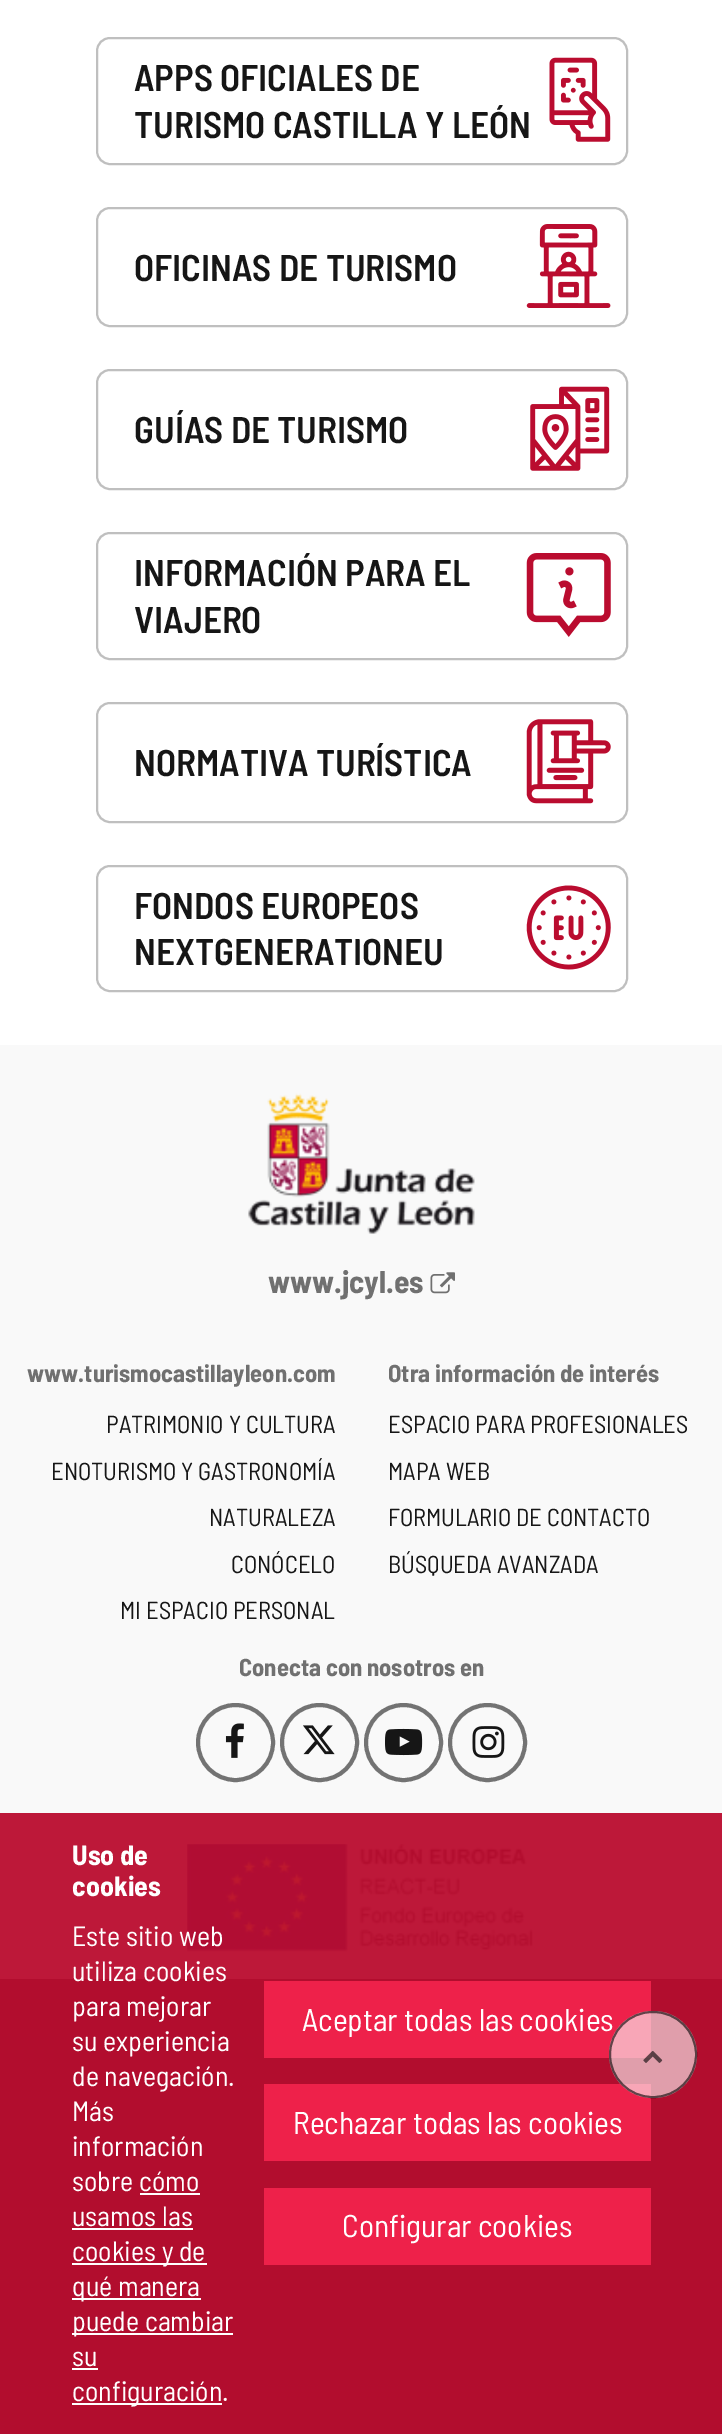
%!PS
<< /PageSize [722 2434] /PageUsesTransparency true >> setpagedevice
/rgb { 3 { 255 div 3 1 roll } repeat setrgbcolor } def
/font { [ exch dup neg 0 0 3 -1 roll 0 0 ] selectfont } def
/text { moveto show } def
/alpha { dup .setfillconstantalpha .setstrokeconstantalpha } def
/circle { newpath 0 360 arc closepath } def
/roundrect { 5 dict begin { /r /h /w /y /x } { exch def } forall
  x r add y moveto x w add y 2 copy h add r arct x w add y h add x 1 index r arct
  x y h add x y r arct x y 2 copy exch w add exch r arct closepath end } def
/picture { 5 dict begin { /h /w /y /x /name } { exch def } forall
  gsave x y translate w h scale
  w h 8 [w 0 0 h 0 0] name (r) file false 3 colorimage grestore end } def
0 .pushpdf14devicefilter
0 2434 translate 1 -1 scale
4 setmiterlimit
255 255 255 rgb
0 0 722 2434 rectfill
191 191 191 rgb
2 setlinewidth
97 38 530 126 13 roundrect stroke
(img_01.rgb) 549 57 62 85 picture
97 208 530 118 13 roundrect stroke
(img_02.rgb) 526 224 85 84 picture
97 370 530 119 13 roundrect stroke
(img_03.rgb) 530 386 80 85 picture
97 533 530 126 13 roundrect stroke
(img_04.rgb) 526 553 85 84 picture
97 703 530 119 13 roundrect stroke
(img_05.rgb) 526 719 85 85 picture
97 866 530 125 13 roundrect stroke
(img_06.rgb) 526 885 85 85 picture
249 249 249 rgb
0 1045 722 768 rectfill
189 24 57 rgb
0 1813 722 166 rectfill
(img_07.rgb) 248 1093 227 141 picture
(img_08.rgb) 430 1272 25 22 picture
115 115 115 rgb
4 setlinewidth
235.5 1742.5 37.5 circle stroke
(img_09.rgb) 225 1723 19 35 picture
319.5 1742.5 37.5 circle stroke
(img_10.rgb) 303 1725 32 30 picture
403.5 1742.5 37.5 circle stroke
(img_11.rgb) 385 1728 38 28 picture
487.5 1742.5 37.5 circle stroke
(img_12.rgb) 472 1726 33 32 picture
(img_13.rgb) 187 1844 350 109 picture
178 13 46 rgb
0 1979 722 455 rectfill
(img_15.rgb) 351 2226 19 23 picture
255 255 255 rgb
140 2193 60 2 rectfill
72 2228 121 2 rectfill
72 2263 135 2 rectfill
72 2298 129 2 rectfill
72 2333 161 2 rectfill
72 2368 26 2 rectfill
72 2403 150 2 rectfill
238 33 74 rgb
264 1981 387 77 rectfill
0.95 alpha
241 34 75 rgb
264 2084 387 77 rectfill
264 2188 387 77 rectfill
/BarlowSemiCondensed-SemiBold 37.1 font
1 alpha
22 22 22 rgb
(APPS OFICIALES DE) 134 91 text
(TURISMO CASTILLA Y LEÓN) 134 138 text
(OFICINAS DE TURISMO) 134 281 text
(GUÍAS DE TURISMO) 134 443 text
(INFORMACIÓN PARA EL) 134 586 text
(VIAJERO) 134 633 text
(NORMATIVA TURÍSTICA) 134 776 text
(FONDOS EUROPEOS) 134 919 text
(NEXTGENERATIONEU) 134 965 text
/BarlowSemiCondensed-Bold 31.5 font
112 112 112 rgb
(www.jcyl.es) 268 1293 text
/BarlowSemiCondensed-Bold 24.5 font
(www.turismocastillayleon.com) 27 1382 text
/BarlowSemiCondensed-Regular 24.5 font
22 22 22 rgb
(PATRIMONIO Y CULTURA) 106 1433 text
(ENOTURISMO Y GASTRONOMÍA) 51 1480 text
(NATURALEZA) 209 1526 text
(CONÓCELO) 231 1573 text
(MI ESPACIO PERSONAL) 120 1619 text
/BarlowSemiCondensed-Bold 24.5 font
112 112 112 rgb
(Otra información de interés) 388 1382 text
/BarlowSemiCondensed-Regular 24.5 font
22 22 22 rgb
(ESPACIO PARA PROFESIONALES) 388 1433 text
(MAPA WEB) 388 1480 text
(FORMULARIO DE CONTACTO) 388 1526 text
(BÚSQUEDA AVANZADA) 388 1573 text
/BarlowSemiCondensed-Bold 24.5 font
112 112 112 rgb
(Conecta con nosotros en) 239 1676 text
/BarlowSemiCondensed-Bold 28 font
255 255 255 rgb
(Uso de) 72 1865 text
(cookies) 72 1896 text
/BarlowSemiCondensed-Regular 28 font
(Este sitio web) 72 1946 text
(utiliza cookies) 72 1981 text
(para mejorar) 72 2016 text
(su experiencia) 72 2051 text
(de navegación.) 72 2086 text
(Más) 72 2121 text
(información) 72 2156 text
(sobre cómo) 72 2191 text
(usamos las) 72 2226 text
(cookies y de) 72 2261 text
(qué manera) 72 2296 text
(puede cambiar) 72 2331 text
(su) 72 2366 text
(configuración.) 72 2401 text
/BarlowSemiCondensed-Regular 31.5 font
(Aceptar todas las cookies) 302 2031 text
0.6 alpha
609 2011 88 87 43.5 roundrect fill
0 0 0 rgb
2 setlinewidth
610 2012 86 85 42.5 roundrect stroke
1 alpha
(img_14.rgb) 643 2051 20 12 picture
255 255 255 rgb
(Rechazar todas las cookies) 293 2134 text
(Configurar cookies) 342 2237 text
.poppdf14devicefilter showpage
